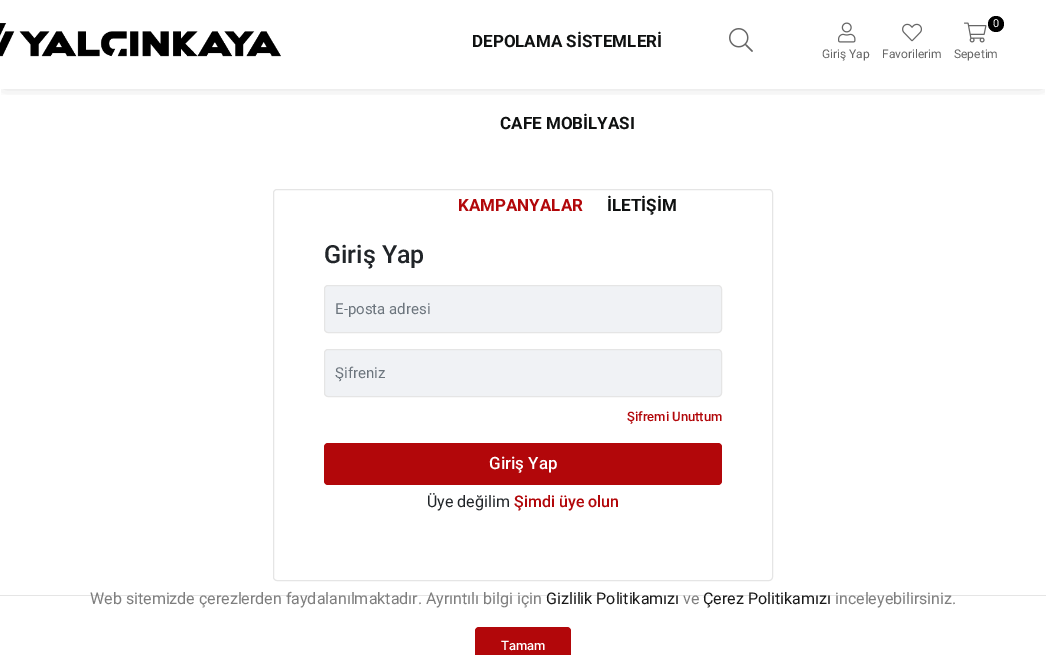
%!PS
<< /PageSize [1046 655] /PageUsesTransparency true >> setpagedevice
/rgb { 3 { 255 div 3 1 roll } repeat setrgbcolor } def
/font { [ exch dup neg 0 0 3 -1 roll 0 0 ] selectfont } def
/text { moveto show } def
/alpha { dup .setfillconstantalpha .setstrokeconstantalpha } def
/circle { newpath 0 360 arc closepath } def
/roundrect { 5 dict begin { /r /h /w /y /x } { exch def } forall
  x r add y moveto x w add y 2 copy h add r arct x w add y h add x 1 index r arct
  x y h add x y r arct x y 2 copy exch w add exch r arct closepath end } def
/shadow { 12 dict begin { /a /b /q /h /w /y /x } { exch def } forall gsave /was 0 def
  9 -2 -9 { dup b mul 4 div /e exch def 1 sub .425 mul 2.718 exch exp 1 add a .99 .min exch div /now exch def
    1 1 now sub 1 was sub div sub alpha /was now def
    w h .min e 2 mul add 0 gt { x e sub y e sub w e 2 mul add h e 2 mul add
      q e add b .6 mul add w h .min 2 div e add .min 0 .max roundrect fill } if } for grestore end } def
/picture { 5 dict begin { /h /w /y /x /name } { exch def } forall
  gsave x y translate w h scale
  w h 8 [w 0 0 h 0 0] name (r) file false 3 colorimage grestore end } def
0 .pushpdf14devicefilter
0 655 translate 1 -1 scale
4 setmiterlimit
255 255 255 rgb
0 0 1046 655 rectfill
gsave
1 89 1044 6 rectclip
0 0 0 rgb
4 4 1038 81 0 7.5 0.22 shadow
grestore
(img_01.rgb) 0 23 281 34 picture
(img_02.rgb) 729 28 24 24 picture
(img_03.rgb) 838 22 18 21 picture
(img_04.rgb) 902 23 20 19 picture
0 0 0 rgb
996 24 8 circle fill
(img_05.rgb) 964 22 23 21 picture
229 229 229 rgb
273.5 189.5 499 391 3.5 roundrect stroke
240 242 245 rgb
324.5 285.5 397 47 3.5 roundrect gsave fill grestore
229 229 229 rgb
stroke
240 242 245 rgb
324.5 349.5 397 47 3.5 roundrect gsave fill grestore
229 229 229 rgb
stroke
178 7 10 rgb
324 443 398 42 4 roundrect fill
229 229 229 rgb
0 595 1046 1 rectfill
178 7 10 rgb
475 627 96 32 4 roundrect fill
/Roboto-Bold 17 font
15 17 17 rgb
(DEPOLAMA SİSTEMLERİ) 472 47 text
(CAFE MOBİLYASI) 500 129 text
178 7 10 rgb
(KAMPANYALAR) 458 211 text
15 17 17 rgb
(İLETİŞİM) 607 211 text
/Roboto-Regular 12 font
102 102 102 rgb
(Giriş Yap) 822 58 text
(Favorilerim) 882 58 text
/Roboto-Regular 11 font
255 255 255 rgb
(0) 993 27 text
/Roboto-Regular 12 font
102 102 102 rgb
(Sepetim) 954 58 text
/Roboto-Medium 25 font
33 37 41 rgb
(Giriş Yap) 324 263 text
/Roboto-Regular 15 font
108 117 125 rgb
(E-posta adresi) 335 314 text
(Şifreniz) 335 378 text
/Roboto-Medium 13 font
178 7 10 rgb
(Şifremi Unuttum) 627 421 text
/Roboto-Medium 17 font
255 255 255 rgb
(Giriş Yap) 489 469 text
/Roboto-Regular 16 font
33 37 41 rgb
(Üye değilim) 427 507 text
/Roboto-Medium 16 font
178 7 10 rgb
(Şimdi üye olun) 514 507 text
/Roboto-Regular 16 font
126 126 126 rgb
(Web sitemizde çerezlerden faydalanılmaktadır. Ayrıntılı bilgi için) 90 604 text
25 25 25 rgb
(Gizlilik Politikamızı) 546 604 text
126 126 126 rgb
(ve) 683 604 text
25 25 25 rgb
(Çerez Politikamızı) 703 604 text
126 126 126 rgb
(inceleyebilirsiniz.) 835 604 text
/Roboto-Medium 13 font
255 255 255 rgb
(Tamam) 501 650 text
.poppdf14devicefilter showpage
